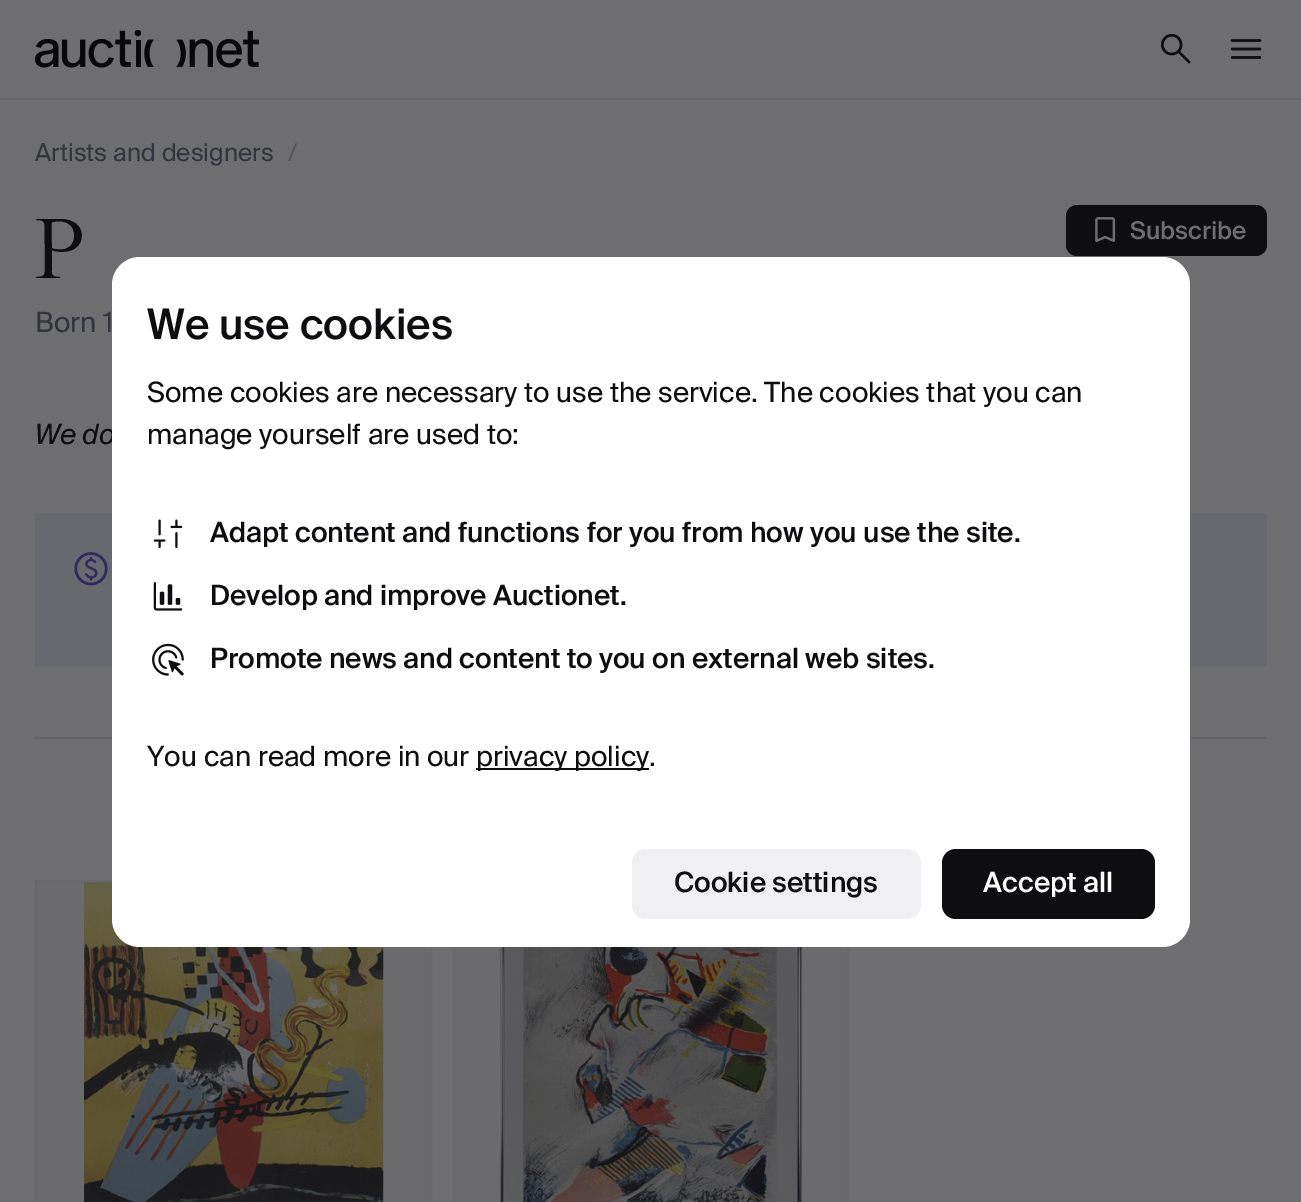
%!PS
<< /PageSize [1301 1202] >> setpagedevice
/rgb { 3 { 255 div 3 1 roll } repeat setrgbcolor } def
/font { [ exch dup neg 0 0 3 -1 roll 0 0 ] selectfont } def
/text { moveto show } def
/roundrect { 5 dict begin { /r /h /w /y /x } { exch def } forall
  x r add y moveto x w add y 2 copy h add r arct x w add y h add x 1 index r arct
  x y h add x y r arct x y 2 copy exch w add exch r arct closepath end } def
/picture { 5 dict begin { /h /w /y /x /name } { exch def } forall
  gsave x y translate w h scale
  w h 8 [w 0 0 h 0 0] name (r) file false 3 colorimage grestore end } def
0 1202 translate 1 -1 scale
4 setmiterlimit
110 110 112 rgb
0 0 1301 1202 rectfill
104 104 107 rgb
0 98 1301 2 rectfill
(img_01.rgb) 35 30 224 38 picture
(img_02.rgb) 1160 33 31 31 picture
(img_03.rgb) 1230 39 32 20 picture
14 14 16 rgb
1066 205 201 51 11 roundrect fill
(img_04.rgb) 1095 217 21 25 picture
104 104 111 rgb
35 513 1232 154 rectfill
(img_05.rgb) 74 552 34 34 picture
98 99 102 rgb
35 737 1232 2 rectfill
104 104 107 rgb
2 setlinewidth
36 881 395 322 rectstroke
107 107 109 rgb
37 882 394 320 rectfill
(img_06.rgb) 84 882 300 320 picture
104 104 107 rgb
454 881 394 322 rectstroke
107 107 109 rgb
455 947 392 255 rectfill
(img_07.rgb) 500 947 302 255 picture
/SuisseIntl-Regular 24.5 font
50 52 62 rgb
(Artists and designers) 35 161 text
87 88 93 rgb
(/) 288 161 text
/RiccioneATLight-Light 82 font
14 14 16 rgb
(P) 35 278 text
/SuisseIntl-Regular 28 font
50 52 62 rgb
(Born 1) 35 332 text
/SuisseIntl-Medium 24.5 font
110 110 112 rgb
(Subscribe) 1130 239 text
/SuisseIntl-Italic 28 font
14 14 16 rgb
(We do) 35 444 text
255 255 255 rgb
112 257 1078 690 28 roundrect fill
/SuisseIntl-Medium 42 font
14 14 16 rgb
(We use cookies) 147 339 text
/SuisseIntl-Regular 28 font
(Some cookies are necessary to use the service. The cookies that you can) 147 402 text
(manage yourself are used to:) 147 444 text
(img_08.rgb) 153 519 30 29 picture
/SuisseIntl-Medium 28 font
(Adapt content and functions for you from how you use the site.) 210 542 text
(img_09.rgb) 153 582 30 29 picture
(Develop and improve Auctionet.) 210 605 text
(img_10.rgb) 152 643 32 33 picture
(Promote news and content to you on external web sites.) 210 668 text
/SuisseIntl-Regular 28 font
(You can read more in our) 147 766 text
476 768 173 2 rectfill
(privacy policy.) 476 766 text
240 240 243 rgb
632 849 289 70 14 roundrect fill
/SuisseIntl-Medium 28 font
14 14 16 rgb
(Cookie settings) 674 892 text
942 849 213 70 14 roundrect fill
255 255 255 rgb
(Accept all) 983 892 text
showpage
